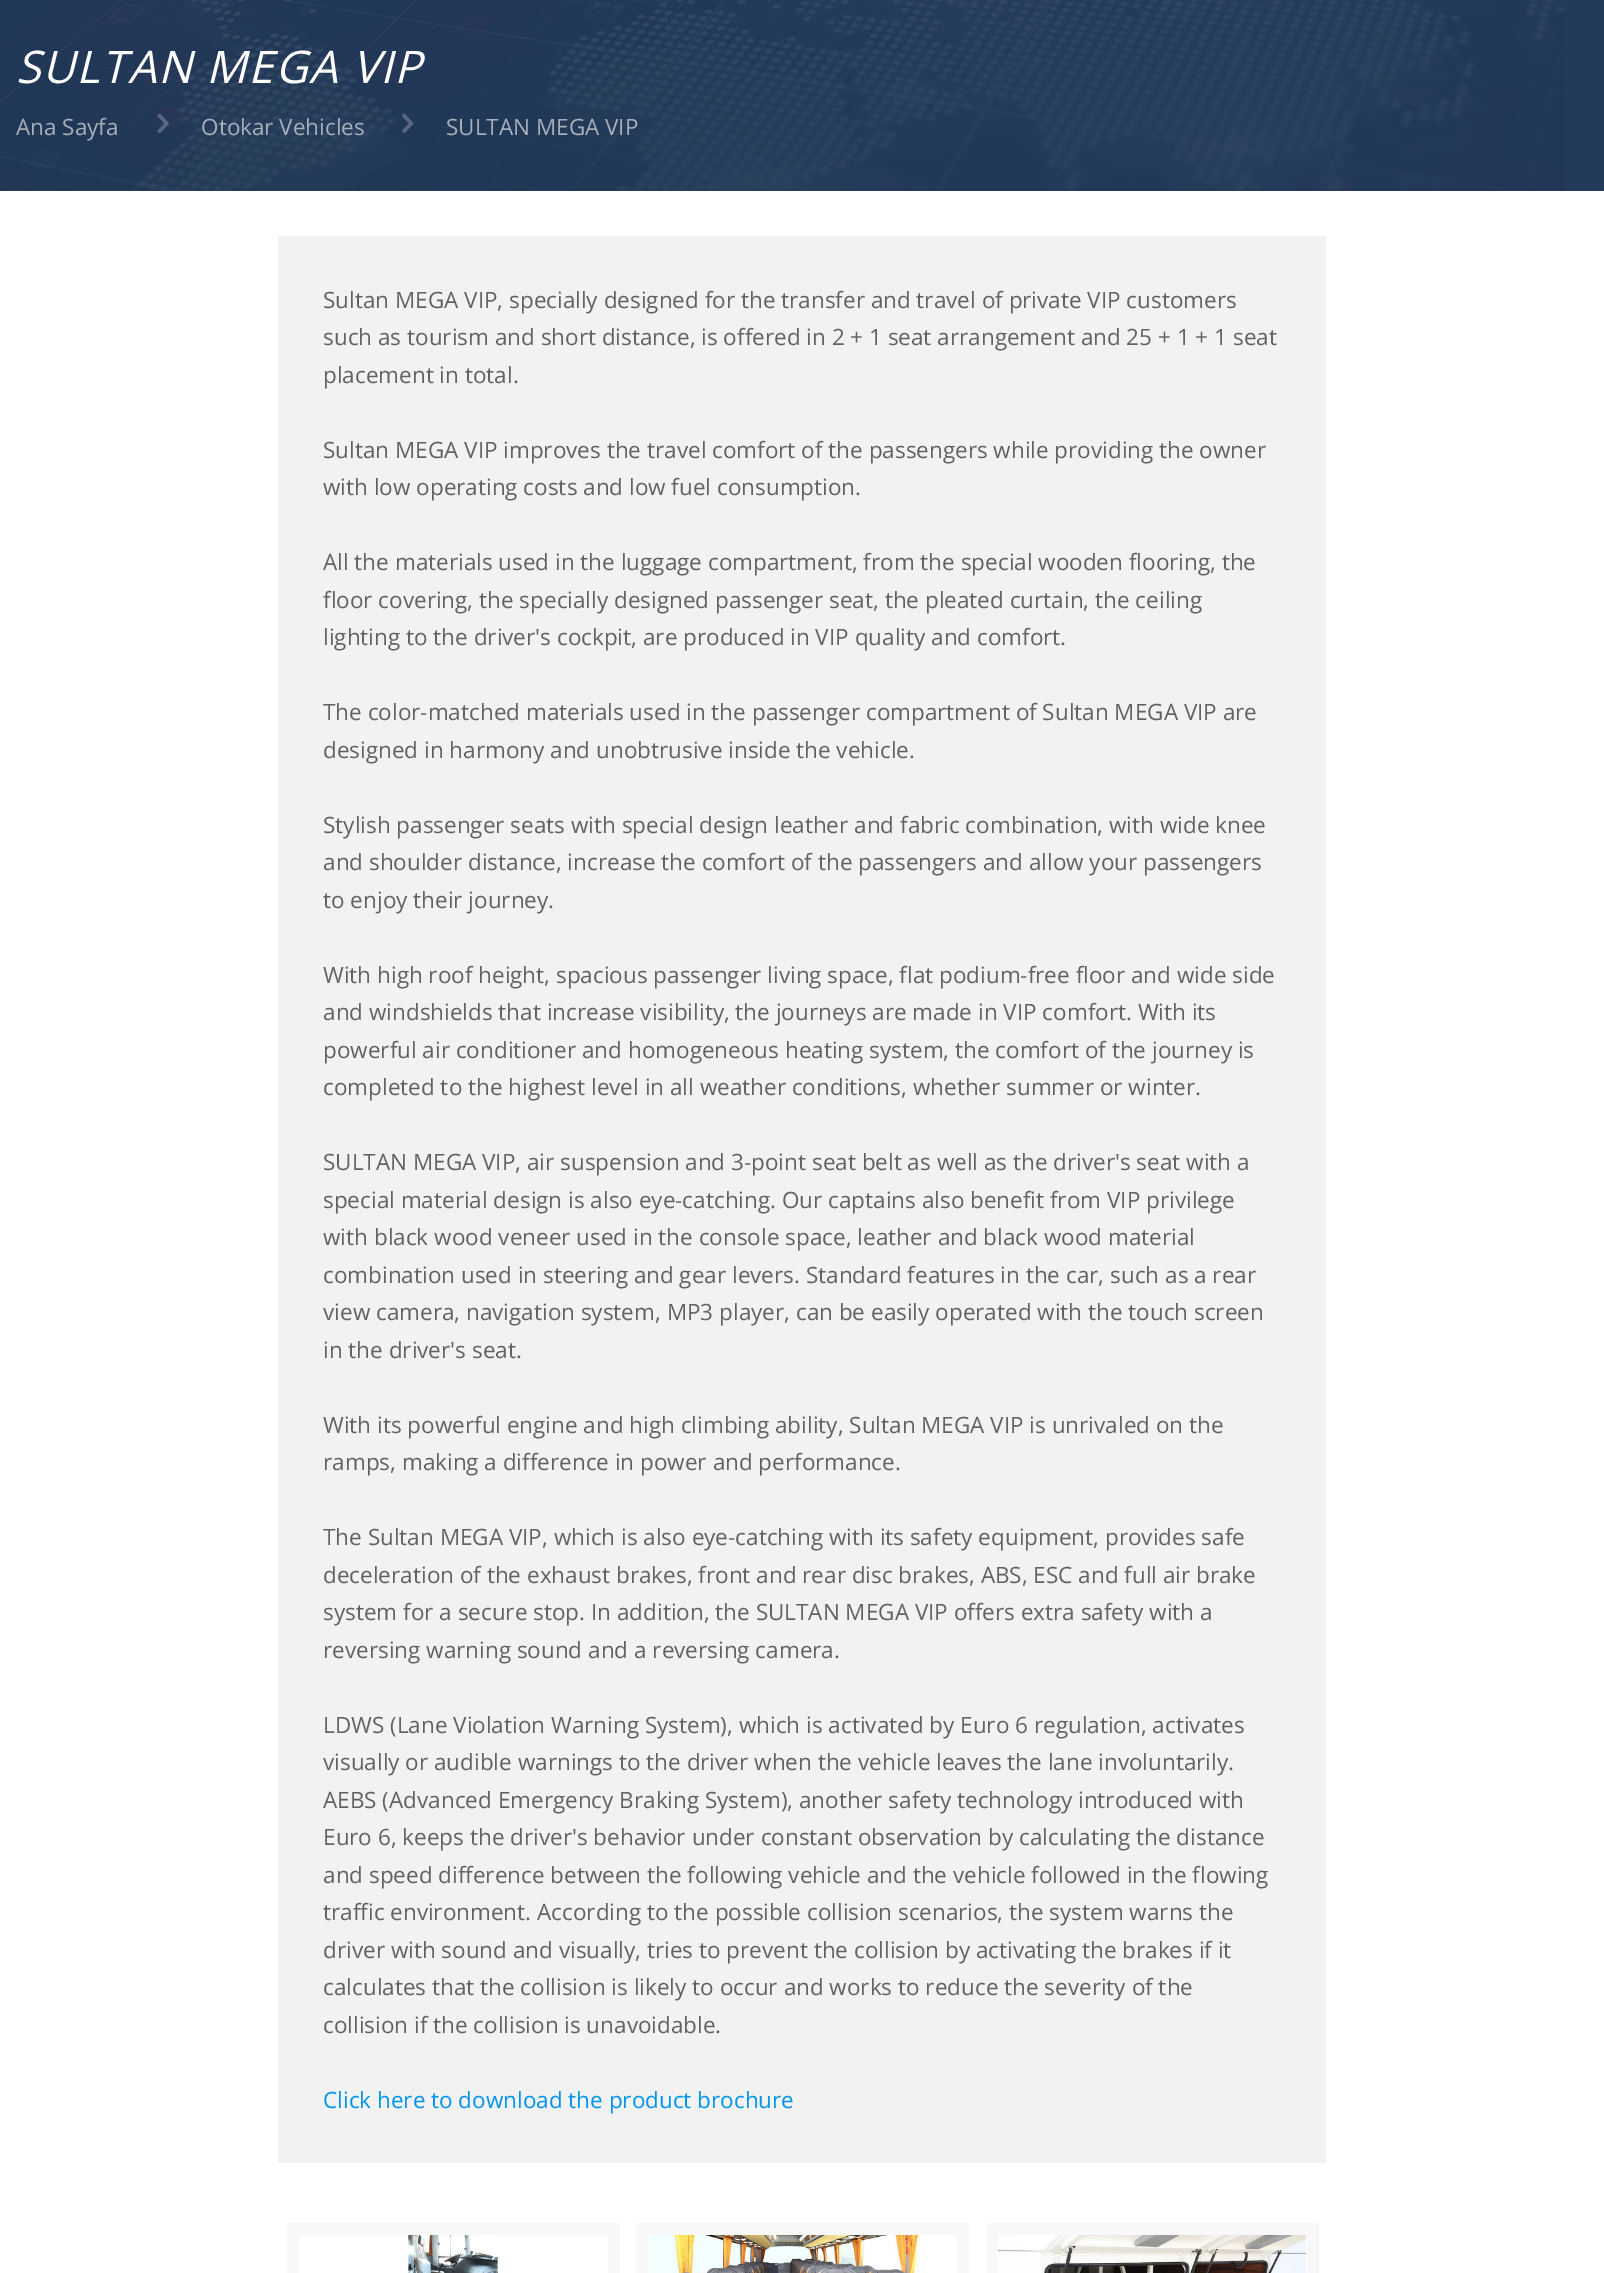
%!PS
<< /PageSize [1604 2273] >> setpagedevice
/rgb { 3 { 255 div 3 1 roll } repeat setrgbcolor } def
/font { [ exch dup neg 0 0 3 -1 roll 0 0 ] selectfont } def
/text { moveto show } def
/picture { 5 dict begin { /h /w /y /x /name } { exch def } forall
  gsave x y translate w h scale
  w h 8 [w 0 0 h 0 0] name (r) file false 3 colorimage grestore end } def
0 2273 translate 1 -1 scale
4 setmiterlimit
255 255 255 rgb
0 0 1604 2273 rectfill
36 58 90 rgb
0 0 1604 191 rectfill
(img_01.rgb) 0 0 1565 191 picture
(img_02.rgb) 157 113 12 20 picture
(img_03.rgb) 402 113 12 20 picture
242 242 242 rgb
278 236 1048 1927 rectfill
248 248 248 rgb
12 setlinewidth
293 2229 321 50 rectstroke
(img_04.rgb) 405 2235 95 38 picture
642 2229 321 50 rectstroke
(img_05.rgb) 648 2235 309 38 picture
992 2229 321 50 rectstroke
(img_06.rgb) 997 2235 310 38 picture
/OpenSans-Italic 45 font
255 255 255 rgb
16 83 moveto 1.5 0 (SULTAN MEGA VIP) ashow
/OpenSans-Regular 22.5 font
167 175 187 rgb
(Ana Sayfa) 16 135 text
(Otokar Vehicles) 201 135 text
(SULTAN MEGA VIP) 446 135 text
98 98 98 rgb
(Sultan MEGA VIP, specially designed for the transfer and travel of private VIP customers) 323 308 text
(such as tourism and short distance, is offered in 2 + 1 seat arrangement and 25 + 1 + 1 seat) 323 345 text
(placement in total.) 323 383 text
(Sultan MEGA VIP improves the travel comfort of the passengers while providing the owner) 323 458 text
(with low operating costs and low fuel consumption.) 323 495 text
(All the materials used in the luggage compartment, from the special wooden flooring, the) 323 570 text
(floor covering, the specially designed passenger seat, the pleated curtain, the ceiling) 323 608 text
(lighting to the driver's cockpit, are produced in VIP quality and comfort.) 323 645 text
(The color-matched materials used in the passenger compartment of Sultan MEGA VIP are) 323 720 text
(designed in harmony and unobtrusive inside the vehicle.) 323 758 text
(Stylish passenger seats with special design leather and fabric combination, with wide knee) 323 833 text
(and shoulder distance, increase the comfort of the passengers and allow your passengers) 323 870 text
(to enjoy their journey.) 323 908 text
(With high roof height, spacious passenger living space, flat podium-free floor and wide side) 323 983 text
(and windshields that increase visibility, the journeys are made in VIP comfort. With its) 323 1020 text
(powerful air conditioner and homogeneous heating system, the comfort of the journey is) 323 1058 text
(completed to the highest level in all weather conditions, whether summer or winter.) 323 1095 text
(SULTAN MEGA VIP, air suspension and 3-point seat belt as well as the driver's seat with a) 323 1170 text
(special material design is also eye-catching. Our captains also benefit from VIP privilege) 323 1208 text
(with black wood veneer used in the console space, leather and black wood material) 323 1245 text
(combination used in steering and gear levers. Standard features in the car, such as a rear) 323 1283 text
(view camera, navigation system, MP3 player, can be easily operated with the touch screen) 323 1320 text
(in the driver's seat.) 323 1358 text
(With its powerful engine and high climbing ability, Sultan MEGA VIP is unrivaled on the) 323 1433 text
(ramps, making a difference in power and performance.) 323 1470 text
(The Sultan MEGA VIP, which is also eye-catching with its safety equipment, provides safe) 323 1545 text
(deceleration of the exhaust brakes, front and rear disc brakes, ABS, ESC and full air brake) 323 1583 text
(system for a secure stop. In addition, the SULTAN MEGA VIP offers extra safety with a) 323 1620 text
(reversing warning sound and a reversing camera.) 323 1658 text
(LDWS \(Lane Violation Warning System\), which is activated by Euro 6 regulation, activates) 323 1733 text
(visually or audible warnings to the driver when the vehicle leaves the lane involuntarily.) 323 1770 text
(AEBS \(Advanced Emergency Braking System\), another safety technology introduced with) 323 1808 text
(Euro 6, keeps the driver's behavior under constant observation by calculating the distance) 323 1845 text
(and speed difference between the following vehicle and the vehicle followed in the flowing) 323 1883 text
(traffic environment. According to the possible collision scenarios, the system warns the) 323 1920 text
(driver with sound and visually, tries to prevent the collision by activating the brakes if it) 323 1958 text
(calculates that the collision is likely to occur and works to reduce the severity of the) 323 1995 text
(collision if the collision is unavoidable.) 323 2033 text
0 149 235 rgb
(Click here to download the product brochure) 323 2108 text
showpage
